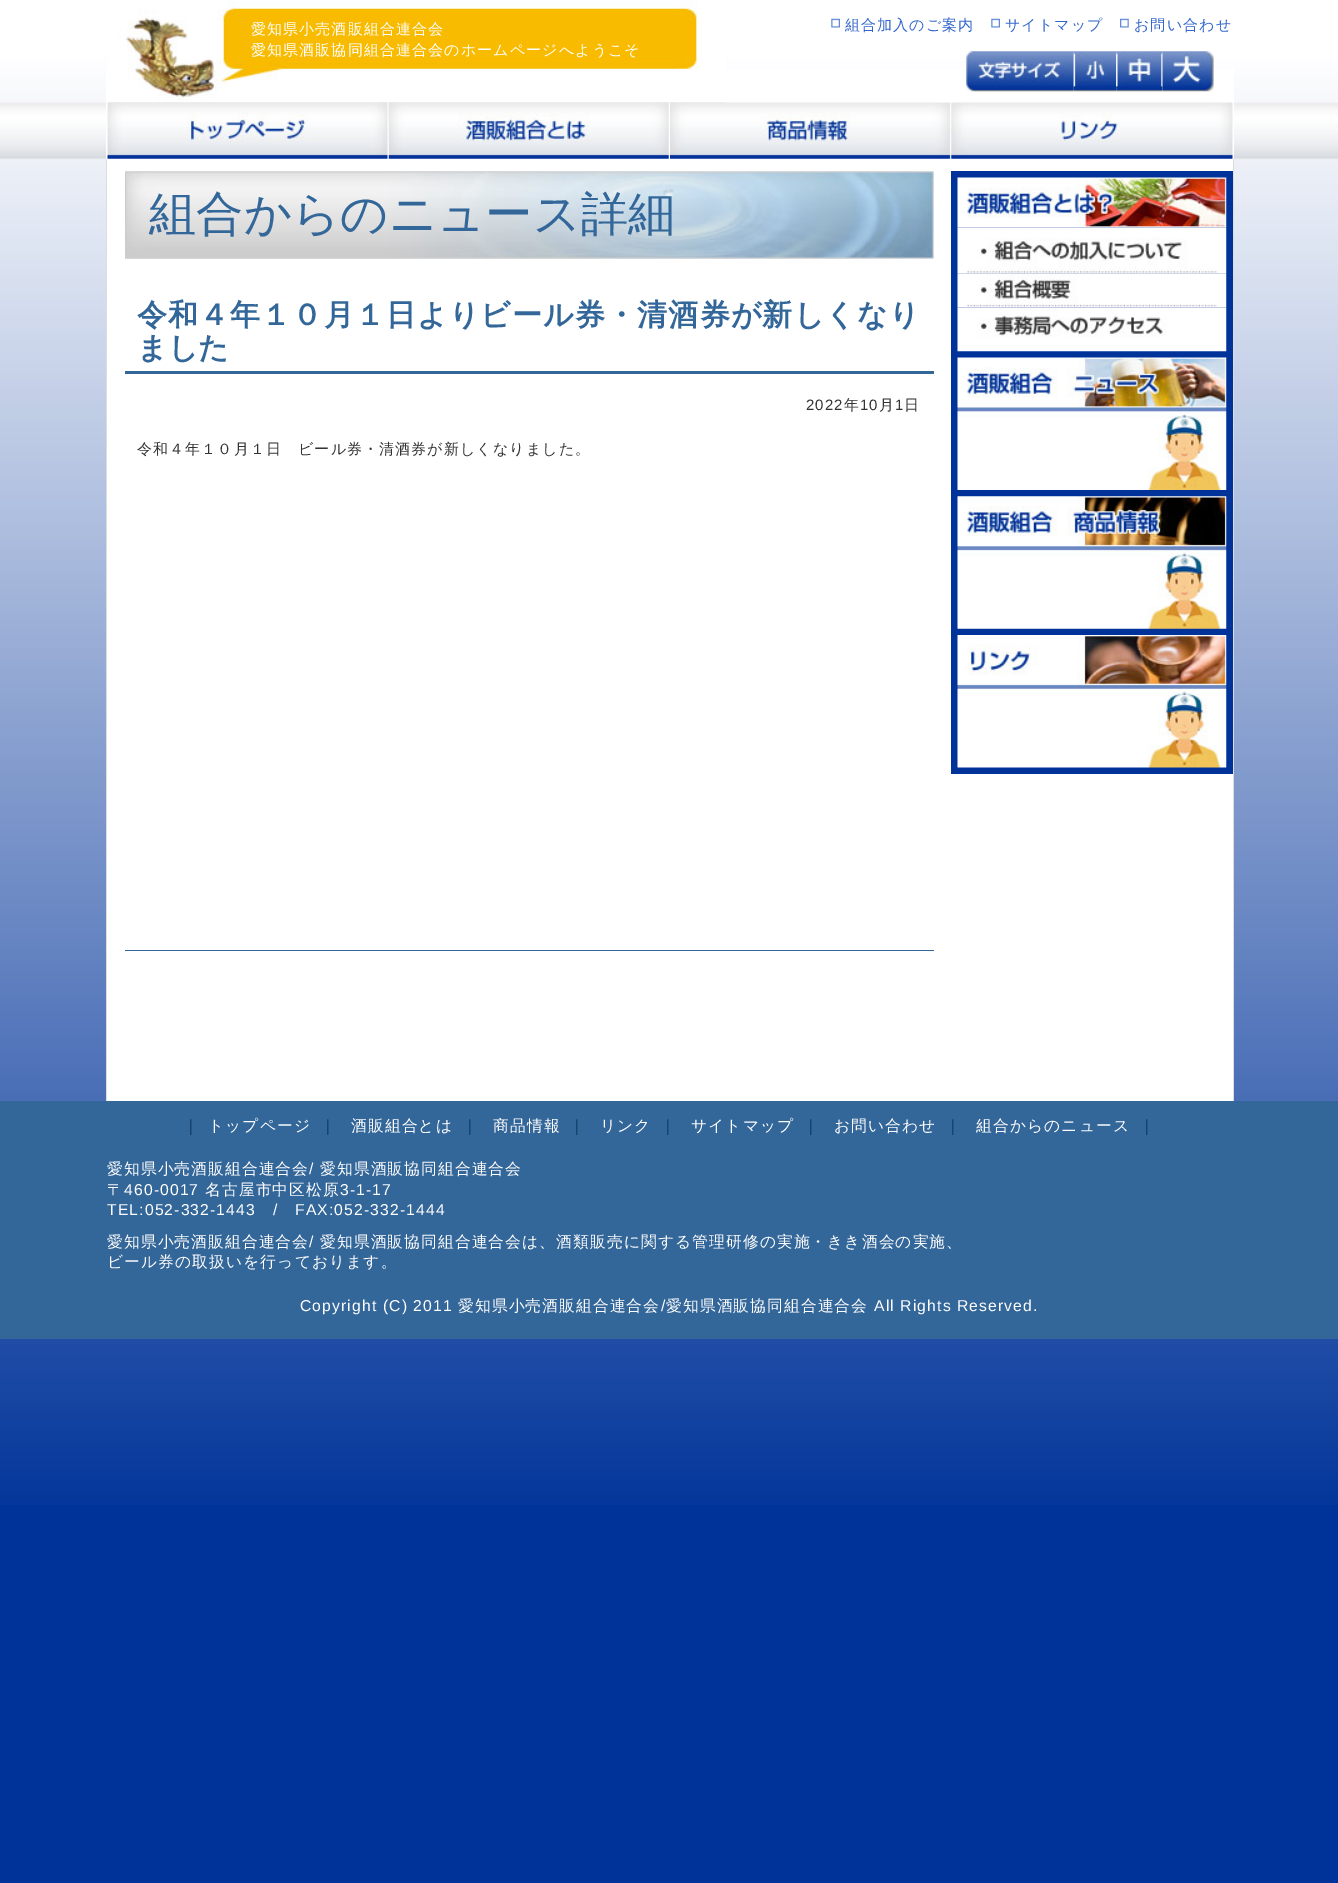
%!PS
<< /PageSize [1338 1883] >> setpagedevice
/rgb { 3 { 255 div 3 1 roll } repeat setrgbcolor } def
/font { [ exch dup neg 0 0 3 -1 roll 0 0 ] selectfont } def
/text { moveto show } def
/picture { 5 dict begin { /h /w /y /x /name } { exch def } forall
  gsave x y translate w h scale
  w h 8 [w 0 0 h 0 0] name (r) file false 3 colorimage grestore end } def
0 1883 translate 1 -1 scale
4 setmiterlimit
0 51 153 rgb
0 0 1338 1883 rectfill
(img_01.rgb) 0 0 1338 1505 picture
255 255 255 rgb
106 69 1128 90 rectfill
(img_02.rgb) 108 0 618 103 picture
(img_03.rgb) 831 18 9 10 picture
(img_03.rgb) 991 18 9 10 picture
(img_04.rgb) 1120 18 9 10 picture
(img_05.rgb) 965 51 109 41 picture
(img_06.rgb) 1073 51 44 41 picture
(img_07.rgb) 1116 51 47 41 picture
(img_08.rgb) 1162 51 52 41 picture
(img_09.rgb) 107 102 282 57 picture
(img_10.rgb) 388 102 282 57 picture
(img_11.rgb) 670 102 281 57 picture
(img_12.rgb) 951 102 282 57 picture
107 159 1126 942 rectfill
221 221 221 rgb
1233 159 1 942 rectfill
106 159 1 942 rectfill
(img_13.rgb) 125 171 809 88 picture
51 102 153 rgb
125 371 809 3 rectfill
125 950 809 1 rectfill
0 51 153 rgb
951 171 282 603 rectfill
(img_14.rgb) 957 177 270 51 picture
(img_15.rgb) 957 227 270 47 picture
(img_16.rgb) 957 273 270 35 picture
(img_17.rgb) 957 307 270 45 picture
(img_18.rgb) 957 357 270 133 picture
(img_19.rgb) 957 496 270 133 picture
(img_20.rgb) 957 635 270 133 picture
51 102 153 rgb
0 1101 1338 238 rectfill
/WenQuanYiZenHei-Medium 15 font
255 255 255 rgb
251 34 moveto 1.1 0 (愛知県小売酒販組合連合会) ashow
251 55 moveto 1.1 0 (愛知県酒販協同組合連合会のホームページへようこそ) ashow
51 102 204 rgb
845 30 moveto 1.1 0 (組合加入のご案内) ashow
1005 30 moveto 1.1 0 (サイトマップ) ashow
1134 30 moveto 1.1 0 (お問い合わせ) ashow
/WenQuanYiZenHei-Medium 47.25 font
51 102 153 rgb
(組合からのニュース詳細) 149 230 text
/WenQuanYiZenHei-Bold 30 font
137 325 moveto 1.1 0 (令和４年１０月１日よりビール券・清酒券が新しくなり) ashow
(ました) 137 358 text
/LiberationSans-Regular 15 font
51 51 51 rgb
806 410 moveto 1.1 0 (2022) ashow
/WenQuanYiZenHei-Medium 15 font
844 410 moveto 1.1 0 (年) ashow
/LiberationSans-Regular 15 font
860 410 moveto 1.1 0 (10) ashow
/WenQuanYiZenHei-Medium 15 font
879 410 moveto 1.1 0 (月) ashow
/LiberationSans-Regular 15 font
895 410 moveto 1.1 0 (1) ashow
/WenQuanYiZenHei-Medium 15 font
904 410 moveto 1.1 0 (日) ashow
137 454 moveto 1.1 0 (令和４年１０月１日　ビール券・清酒券が新しくなりました。) ashow
/WenQuanYiZenHei-Medium 15.75 font
0 41 81 rgb
183 1131 moveto 1.1 0 (｜) ashow
255 255 255 rgb
208 1131 moveto 1.1 0 (トップページ) ashow
0 41 81 rgb
320 1131 moveto 1.1 0 (｜) ashow
255 255 255 rgb
351 1131 moveto 1.1 0 (酒販組合とは) ashow
0 41 81 rgb
462 1131 moveto 1.1 0 (｜) ashow
255 255 255 rgb
493 1131 moveto 1.1 0 (商品情報) ashow
0 41 81 rgb
569 1131 moveto 1.1 0 (｜) ashow
255 255 255 rgb
600 1131 moveto 1.1 0 (リンク) ashow
0 41 81 rgb
660 1131 moveto 1.1 0 (｜) ashow
255 255 255 rgb
691 1131 moveto 1.1 0 (サイトマップ) ashow
0 41 81 rgb
803 1131 moveto 1.1 0 (｜) ashow
255 255 255 rgb
834 1131 moveto 1.1 0 (お問い合わせ) ashow
0 41 81 rgb
945 1131 moveto 1.1 0 (｜) ashow
255 255 255 rgb
976 1131 moveto 1.1 0 (組合からのニュース) ashow
0 41 81 rgb
1139 1131 moveto 1.1 0 (｜) ashow
255 255 255 rgb
107 1174 moveto 1.1 0 (愛知県小売酒販組合連合会) ashow
/LiberationSans-Regular 15.75 font
309 1174 moveto 1.1 0 (/) ashow
/WenQuanYiZenHei-Medium 15.75 font
320 1174 moveto 1.1 0 (愛知県酒販協同組合連合会) ashow
107 1195 moveto 1.1 0 (〒) ashow
/LiberationSans-Regular 15.75 font
124 1195 moveto 1.1 0 (460-0017) ashow
/WenQuanYiZenHei-Medium 15.75 font
205 1195 moveto 1.1 0 (名古屋市中区松原) ashow
/LiberationSans-Regular 15.75 font
340 1195 moveto 1.1 0 (3-1-17) ashow
107 1215 moveto 1.1 0 (TEL:052-332-1443) ashow
273 1215 moveto 1.1 0 (/) ashow
295 1215 moveto 1.1 0 (FAX:052-332-1444) ashow
/WenQuanYiZenHei-Medium 15.75 font
107 1247 moveto 1.1 0 (愛知県小売酒販組合連合会) ashow
/LiberationSans-Regular 15.75 font
309 1247 moveto 1.1 0 (/) ashow
/WenQuanYiZenHei-Medium 15.75 font
320 1247 moveto 1.1 0 (愛知県酒販協同組合連合会は、酒類販売に関する管理研修の実施・きき酒会の実施、) ashow
107 1267 moveto 1.1 0 (ビール券の取扱いを行っております。) ashow
/LiberationSans-Regular 15.75 font
300 1311 moveto 1.1 0 (Copyright \(C\) 2011) ashow
/WenQuanYiZenHei-Medium 15.75 font
458 1311 moveto 1.1 0 (愛知県小売酒販組合連合会) ashow
/LiberationSans-Regular 15.75 font
661 1311 moveto 1.1 0 (/) ashow
/WenQuanYiZenHei-Medium 15.75 font
666 1311 moveto 1.1 0 (愛知県酒販協同組合連合会) ashow
/LiberationSans-Regular 15.75 font
874 1311 moveto 1.1 0 (All Rights Reserved.) ashow
showpage
